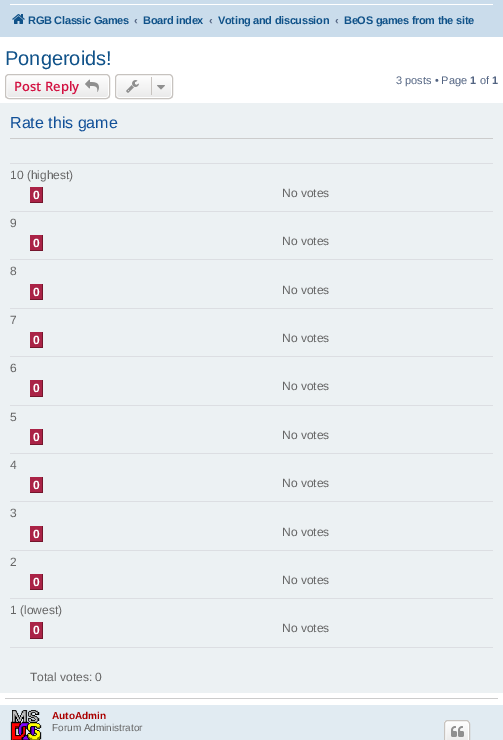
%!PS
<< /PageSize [503 740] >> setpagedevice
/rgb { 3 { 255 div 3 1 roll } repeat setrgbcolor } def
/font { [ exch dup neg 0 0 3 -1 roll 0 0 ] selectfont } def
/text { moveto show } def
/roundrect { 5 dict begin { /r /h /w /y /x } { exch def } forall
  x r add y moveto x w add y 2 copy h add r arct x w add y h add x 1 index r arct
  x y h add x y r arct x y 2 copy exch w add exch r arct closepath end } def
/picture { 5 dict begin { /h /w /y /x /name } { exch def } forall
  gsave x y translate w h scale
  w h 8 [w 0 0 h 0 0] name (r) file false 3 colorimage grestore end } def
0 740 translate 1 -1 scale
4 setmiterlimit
255 255 255 rgb
0 0 503 740 rectfill
202 220 235 rgb
0 0 503 37 rectfill
255 255 255 rgb
10 4 483 1 rectfill
(img_01.rgb) 12 14 13 10 picture
gsave
5 74 105 25 4 roundrect clip newpath
gsave 5 75 moveto 105 0 rlineto 0 23 rlineto -105 0 rlineto closepath clip newpath
<< /ShadingType 2 /ColorSpace /DeviceRGB /Coords [58 75 58 98] /Extend [true true] /Function << /FunctionType 2 /Domain [0 1] /C0 [1 1 1] /C1 [0.914 0.914 0.914] /N 1 >> >> shfill grestore
grestore
6.5 75.5 102 22 2.5 roundrect stroke
199 195 191 rgb
5.5 74.5 104 24 3.5 roundrect stroke
(img_02.rgb) 85 79 14 13 picture
gsave
115 74 58 25 4 roundrect clip newpath
gsave 115 75 moveto 58 0 rlineto 0 23 rlineto -58 0 rlineto closepath clip newpath
<< /ShadingType 2 /ColorSpace /DeviceRGB /Coords [144 75 144 98] /Extend [true true] /Function << /FunctionType 2 /Domain [0 1] /C0 [1 1 1] /C1 [0.914 0.914 0.914] /N 1 >> >> shfill grestore
grestore
255 255 255 rgb
116.5 75.5 55 22 2.5 roundrect stroke
199 195 191 rgb
115.5 74.5 57 24 3.5 roundrect stroke
(img_03.rgb) 126 80 13 13 picture
151 77 1 18 rectfill
(img_04.rgb) 157 85 8 5 picture
236 241 243 rgb
0 103 503 590 rectfill
204 204 204 rgb
10 138 483 1 rectfill
220 222 226 rgb
10 163 483 1 rectfill
170 35 70 rgb
30 187 12 15 rectfill
116 22 44 rgb
42 187 1 16 rectfill
30 202 13 1 rectfill
220 222 226 rgb
10 211 483 1 rectfill
170 35 70 rgb
30 235 12 15 rectfill
116 22 44 rgb
42 235 1 16 rectfill
30 250 13 1 rectfill
220 222 226 rgb
10 259 483 1 rectfill
170 35 70 rgb
30 284 12 15 rectfill
116 22 44 rgb
42 284 1 16 rectfill
30 299 13 1 rectfill
220 222 226 rgb
10 308 483 1 rectfill
170 35 70 rgb
30 332 12 15 rectfill
116 22 44 rgb
42 332 1 16 rectfill
30 347 13 1 rectfill
220 222 226 rgb
10 356 483 1 rectfill
170 35 70 rgb
30 380 12 16 rectfill
116 22 44 rgb
42 380 1 17 rectfill
30 396 13 1 rectfill
220 222 226 rgb
10 405 483 1 rectfill
170 35 70 rgb
30 429 12 15 rectfill
116 22 44 rgb
42 429 1 16 rectfill
30 444 13 1 rectfill
220 222 226 rgb
10 453 483 1 rectfill
170 35 70 rgb
30 477 12 15 rectfill
116 22 44 rgb
42 477 1 16 rectfill
30 492 13 1 rectfill
220 222 226 rgb
10 501 483 1 rectfill
170 35 70 rgb
30 526 12 15 rectfill
116 22 44 rgb
42 526 1 16 rectfill
30 541 13 1 rectfill
220 222 226 rgb
10 550 483 1 rectfill
170 35 70 rgb
30 574 12 15 rectfill
116 22 44 rgb
42 574 1 16 rectfill
30 589 13 1 rectfill
220 222 226 rgb
10 598 483 1 rectfill
170 35 70 rgb
30 622 12 16 rectfill
116 22 44 rgb
42 622 1 17 rectfill
30 638 13 1 rectfill
220 222 226 rgb
10 647 483 1 rectfill
204 204 204 rgb
5 698 493 1 rectfill
225 235 242 rgb
0 705 503 35 rectfill
(img_05.rgb) 10 710 32 30 picture
gsave
444 720 26 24 4 roundrect clip newpath
gsave 444 721 moveto 26 0 rlineto 0 19 rlineto -26 0 rlineto closepath clip newpath
<< /ShadingType 2 /ColorSpace /DeviceRGB /Coords [457 721 457 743] /Extend [true true] /Function << /FunctionType 2 /Domain [0 1] /C0 [1 1 1] /C1 [0.914 0.914 0.914] /N 1 >> >> shfill grestore
grestore
255 255 255 rgb
445.5 721.5 23 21 2.5 roundrect stroke
199 195 191 rgb
444.5 720.5 25 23 3.5 roundrect stroke
(img_06.rgb) 451 726 13 11 picture
/LiberationSans-Bold 11 font
16 82 137 rgb
28 24 moveto -0.3 0 (RGB Classic Games) ashow
83 100 130 rgb
(‹) 134 24 text
16 82 137 rgb
143 24 moveto -0.3 0 (Board index) ashow
83 100 130 rgb
(‹) 209 24 text
16 82 137 rgb
218 24 moveto -0.3 0 (Voting and discussion) ashow
83 100 130 rgb
(‹) 335 24 text
16 82 137 rgb
344 24 moveto -0.3 0 (BeOS games from the site) ashow
/LiberationSans-Regular 20 font
(Pongeroids!) 5 65 text
/OpenSans-SemiBold 13 font
211 17 65 rgb
(Post Reply) 14 91 text
/LiberationSans-Regular 11 font
83 100 130 rgb
(3 posts • Page) 396 84 text
/LiberationSans-Bold 11 font
(1) 470 84 text
/LiberationSans-Regular 11 font
(of) 480 84 text
/LiberationSans-Bold 11 font
(1) 492 84 text
/LiberationSans-Regular 16 font
17 80 152 rgb
(Rate this game) 10 128 text
/LiberationSans-Regular 12 font
102 102 102 rgb
(10 \(highest\)) 10 179 text
/LiberationSans-Bold 12 font
255 255 255 rgb
(0) 33 199 text
/LiberationSans-Regular 12 font
102 102 102 rgb
(No votes) 282 197 text
(9) 10 227 text
/LiberationSans-Bold 12 font
255 255 255 rgb
(0) 33 247 text
/LiberationSans-Regular 12 font
102 102 102 rgb
(No votes) 282 245 text
(8) 10 275 text
/LiberationSans-Bold 12 font
255 255 255 rgb
(0) 33 296 text
/LiberationSans-Regular 12 font
102 102 102 rgb
(No votes) 282 294 text
(7) 10 324 text
/LiberationSans-Bold 12 font
255 255 255 rgb
(0) 33 344 text
/LiberationSans-Regular 12 font
102 102 102 rgb
(No votes) 282 342 text
(6) 10 372 text
/LiberationSans-Bold 12 font
255 255 255 rgb
(0) 33 392 text
/LiberationSans-Regular 12 font
102 102 102 rgb
(No votes) 282 390 text
(5) 10 421 text
/LiberationSans-Bold 12 font
255 255 255 rgb
(0) 33 441 text
/LiberationSans-Regular 12 font
102 102 102 rgb
(No votes) 282 439 text
(4) 10 469 text
/LiberationSans-Bold 12 font
255 255 255 rgb
(0) 33 489 text
/LiberationSans-Regular 12 font
102 102 102 rgb
(No votes) 282 487 text
(3) 10 517 text
/LiberationSans-Bold 12 font
255 255 255 rgb
(0) 33 538 text
/LiberationSans-Regular 12 font
102 102 102 rgb
(No votes) 282 536 text
(2) 10 566 text
/LiberationSans-Bold 12 font
255 255 255 rgb
(0) 33 586 text
/LiberationSans-Regular 12 font
102 102 102 rgb
(No votes) 282 584 text
(1 \(lowest\)) 10 614 text
/LiberationSans-Bold 12 font
255 255 255 rgb
(0) 33 634 text
/LiberationSans-Regular 12 font
102 102 102 rgb
(No votes) 282 632 text
(Total votes: 0) 30 681 text
/LiberationSans-Bold 10 font
170 0 0 rgb
(AutoAdmin) 52 719 text
/LiberationSans-Regular 10 font
102 102 102 rgb
(Forum Administrator) 52 731 text
showpage
